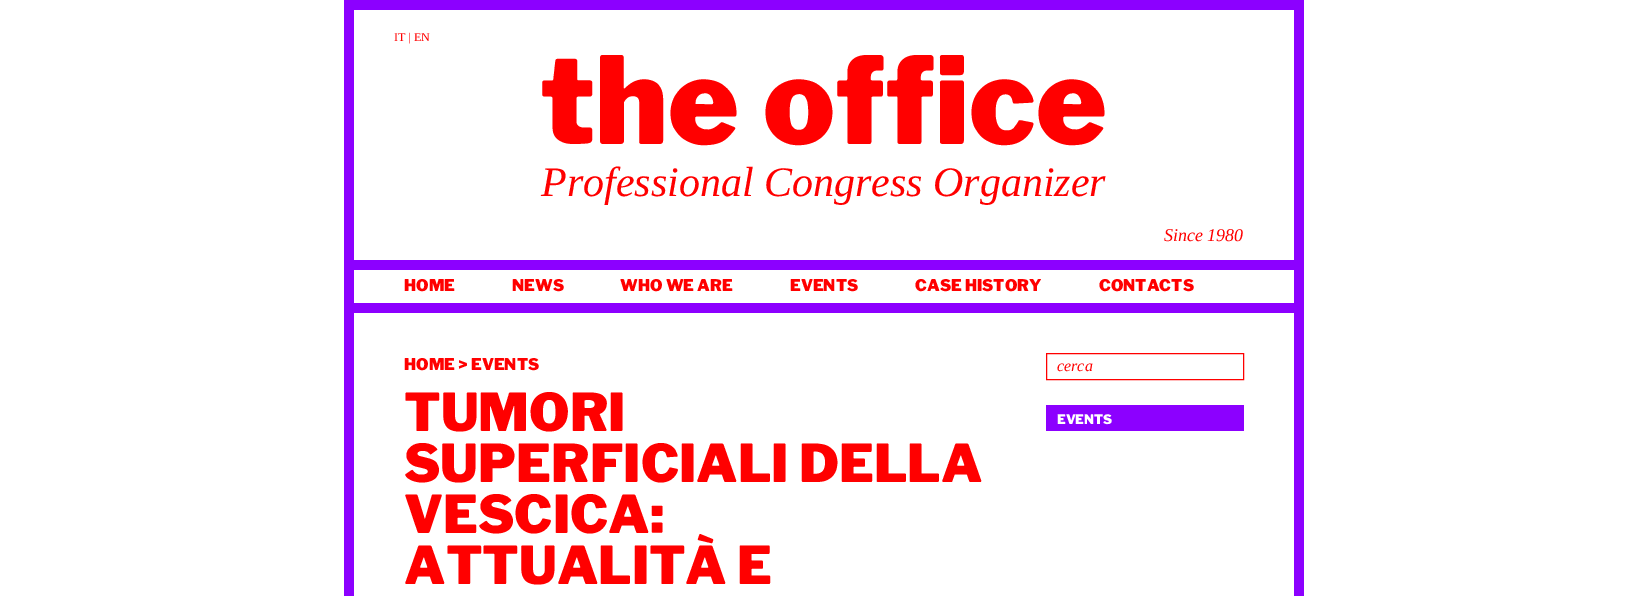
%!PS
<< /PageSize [1647 596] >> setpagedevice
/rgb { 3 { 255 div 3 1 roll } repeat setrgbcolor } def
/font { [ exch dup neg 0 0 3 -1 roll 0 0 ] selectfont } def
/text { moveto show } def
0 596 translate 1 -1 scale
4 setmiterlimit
255 255 255 rgb
0 0 1647 596 rectfill
140 0 255 rgb
344 0 960 596 rectfill
255 255 255 rgb
354 10 940 250 rectfill
354 270 940 33 rectfill
354 313 940 283 rectfill
255 0 0 rgb
1046.5 353.5 197 26 rectstroke
140 0 255 rgb
1046 405 198 26 rectfill
/LiberationSerif-Regular 12 font
255 0 0 rgb
(IT | EN) 394 41 text
/LibreFranklin-Thin 120 font
(the office) 540 144 text
/LiberationSerif-Italic 42 font
(Professional Congress Organizer) 541 196 text
/LiberationSerif-Italic 18 font
(Since 1980) 1164 241 text
/LibreFranklin-Thin 16 font
(HOME) 404 291 text
(NEWS) 512 291 text
(WHO WE ARE) 620 291 text
(EVENTS) 790 291 text
(CASE HISTORY) 915 291 text
(CONTACTS) 1099 291 text
(HOME > EVENTS) 404 370 text
/LibreFranklin-Thin 52 font
(TUMORI) 404 431 text
(SUPERFICIALI DELLA) 404 482 text
(VESCICA:) 404 533 text
(ATTUALITÀ E) 404 584 text
/LiberationSerif-Italic 16 font
(cerca) 1057 371 text
/LibreFranklin-Thin 13 font
255 255 255 rgb
(EVENTS) 1057 424 text
showpage
